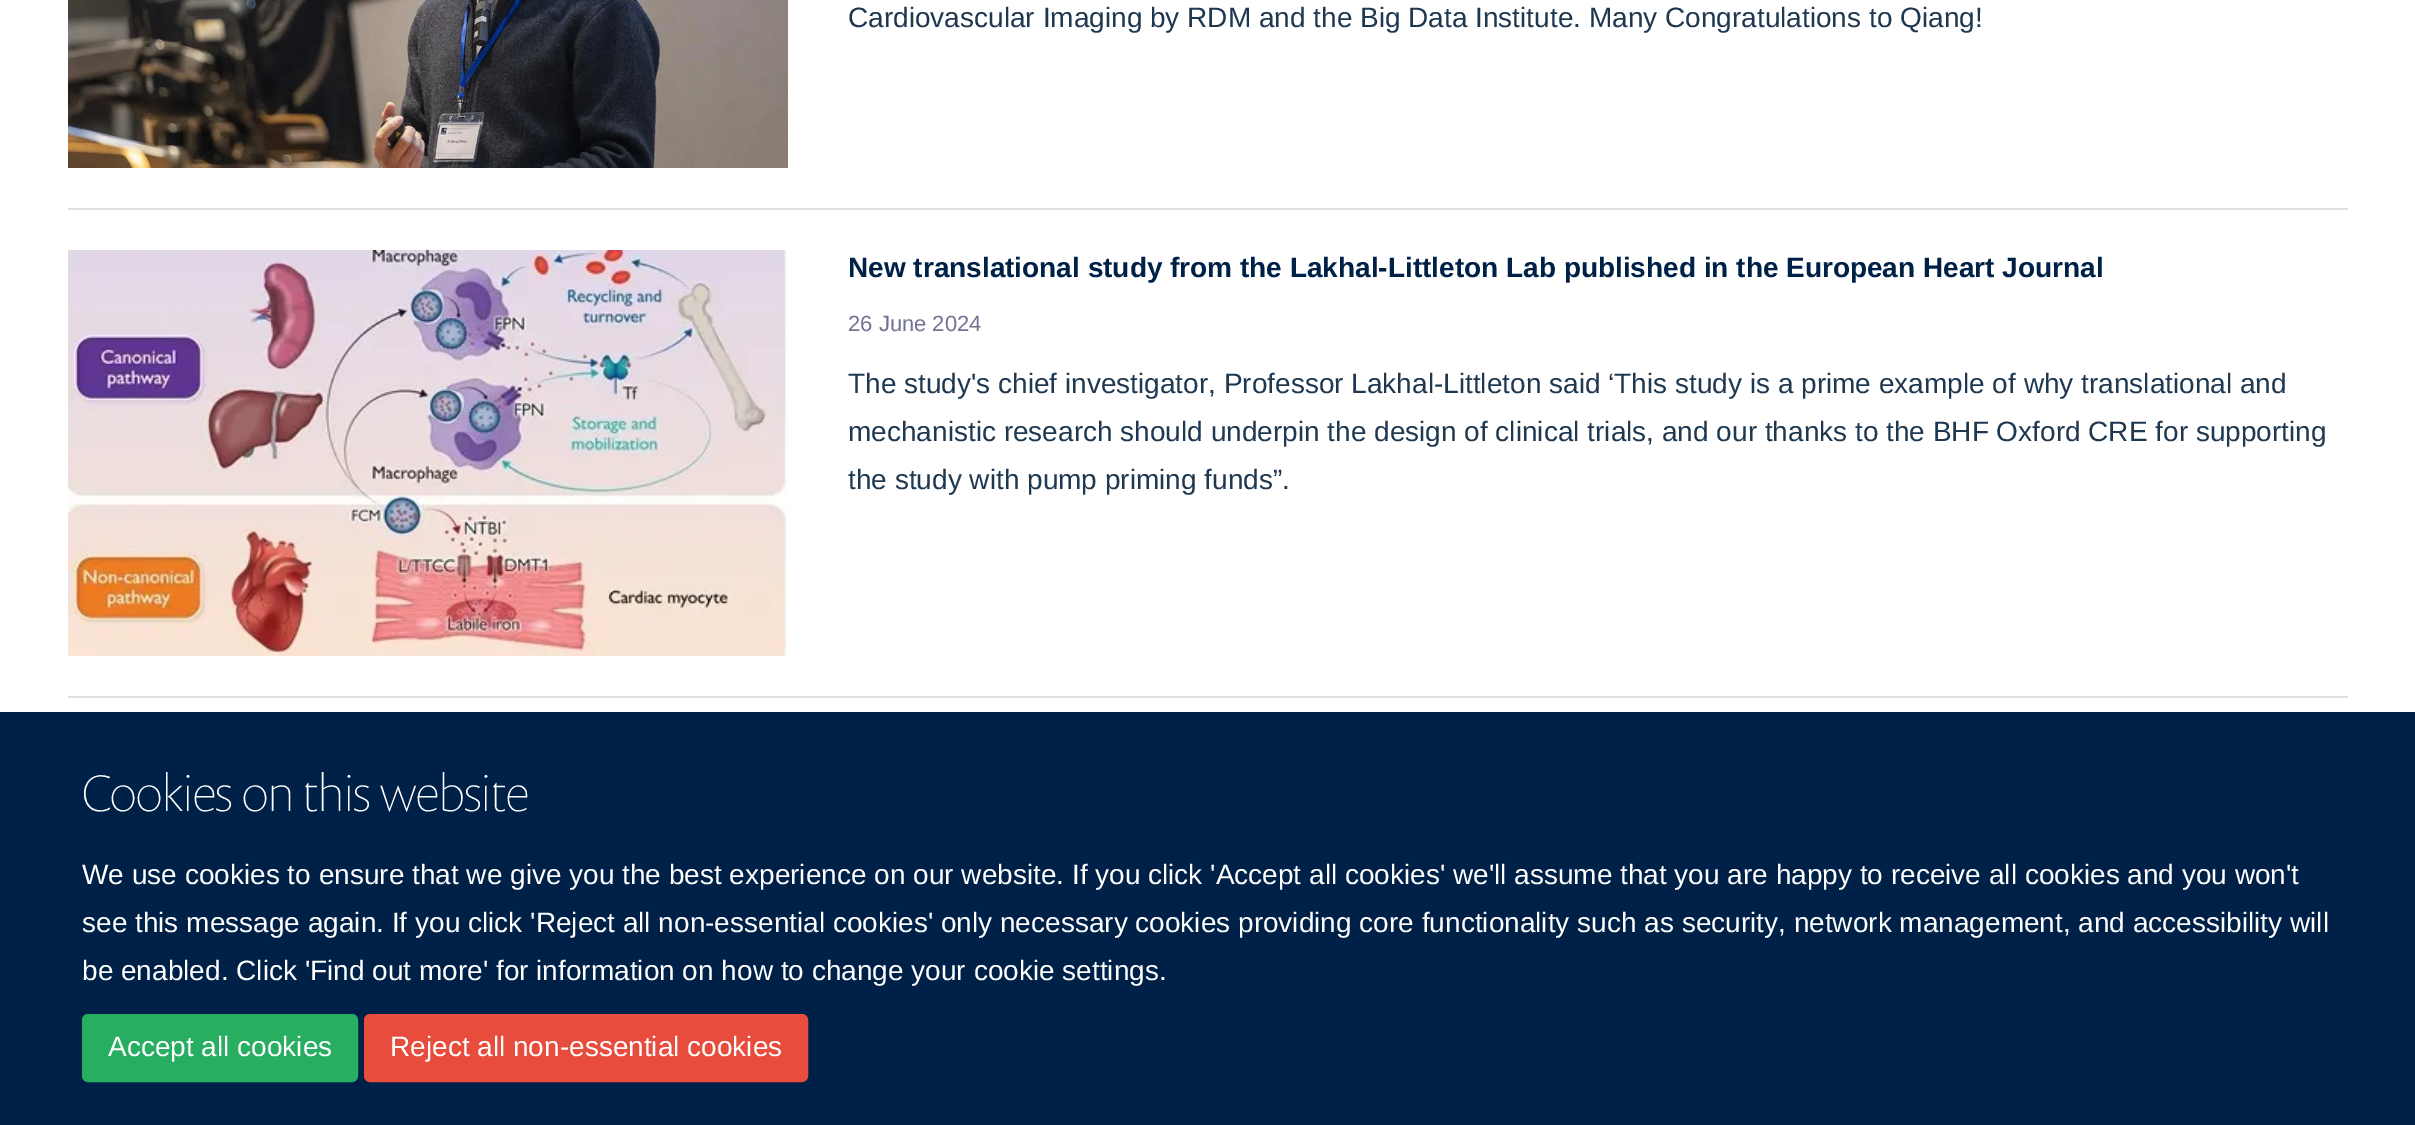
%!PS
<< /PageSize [2415 1125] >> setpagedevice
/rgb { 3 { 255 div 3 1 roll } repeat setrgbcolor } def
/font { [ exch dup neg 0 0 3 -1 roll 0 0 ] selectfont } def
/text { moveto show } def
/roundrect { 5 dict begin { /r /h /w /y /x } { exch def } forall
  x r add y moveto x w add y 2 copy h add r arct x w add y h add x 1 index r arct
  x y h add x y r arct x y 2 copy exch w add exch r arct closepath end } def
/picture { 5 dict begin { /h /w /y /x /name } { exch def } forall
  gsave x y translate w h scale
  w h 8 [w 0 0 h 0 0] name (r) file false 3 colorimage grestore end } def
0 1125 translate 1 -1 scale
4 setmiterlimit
255 255 255 rgb
0 0 2415 1125 rectfill
223 225 228 rgb
68 208 2280 2 rectfill
(img_01.rgb) 68 0 720 168 picture
68 696 2280 2 rectfill
(img_02.rgb) 68 250 720 406 picture
0 33 71 rgb
0 712 2415 413 rectfill
39 174 96 rgb
83 1015 274 66 5 roundrect gsave fill grestore
2 setlinewidth
stroke
231 76 60 rgb
365 1015 442 66 5 roundrect gsave fill grestore
stroke
/LiberationSans-Regular 28 font
29 56 80 rgb
(Cardiovascular Imaging by RDM and the Big Data Institute. Many Congratulations to Qiang!) 848 27 text
/LiberationSans-Bold 28 font
0 33 71 rgb
(New translational study from the Lakhal-Littleton Lab published in the European Heart Journal) 848 277 text
/LiberationSans-Regular 22 font
114 114 149 rgb
(26 June 2024) 848 331 text
/LiberationSans-Regular 28 font
29 56 80 rgb
(The study's chief investigator, Professor Lakhal-Littleton said ‘This study is a prime example of why translational and) 848 393 text
(mechanistic research should underpin the design of clinical trials, and our thanks to the BHF Oxford CRE for supporting) 848 441 text
(the study with pump priming funds”.) 848 489 text
/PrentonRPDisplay-Thin 52 font
255 255 255 rgb
(Cookies on this website) 82 811 text
/LiberationSans-Regular 28 font
(We use cookies to ensure that we give you the best experience on our website. If you click 'Accept all cookies' we'll assume that you are happy to receive all cookies and you won't) 82 884 text
(see this message again. If you click 'Reject all non-essential cookies' only necessary cookies providing core functionality such as security, network management, and accessibility will) 82 932 text
(be enabled. Click 'Find out more' for information on how to change your cookie settings.) 82 980 text
(Accept all cookies) 108 1056 text
(Reject all non-essential cookies) 390 1056 text
showpage
